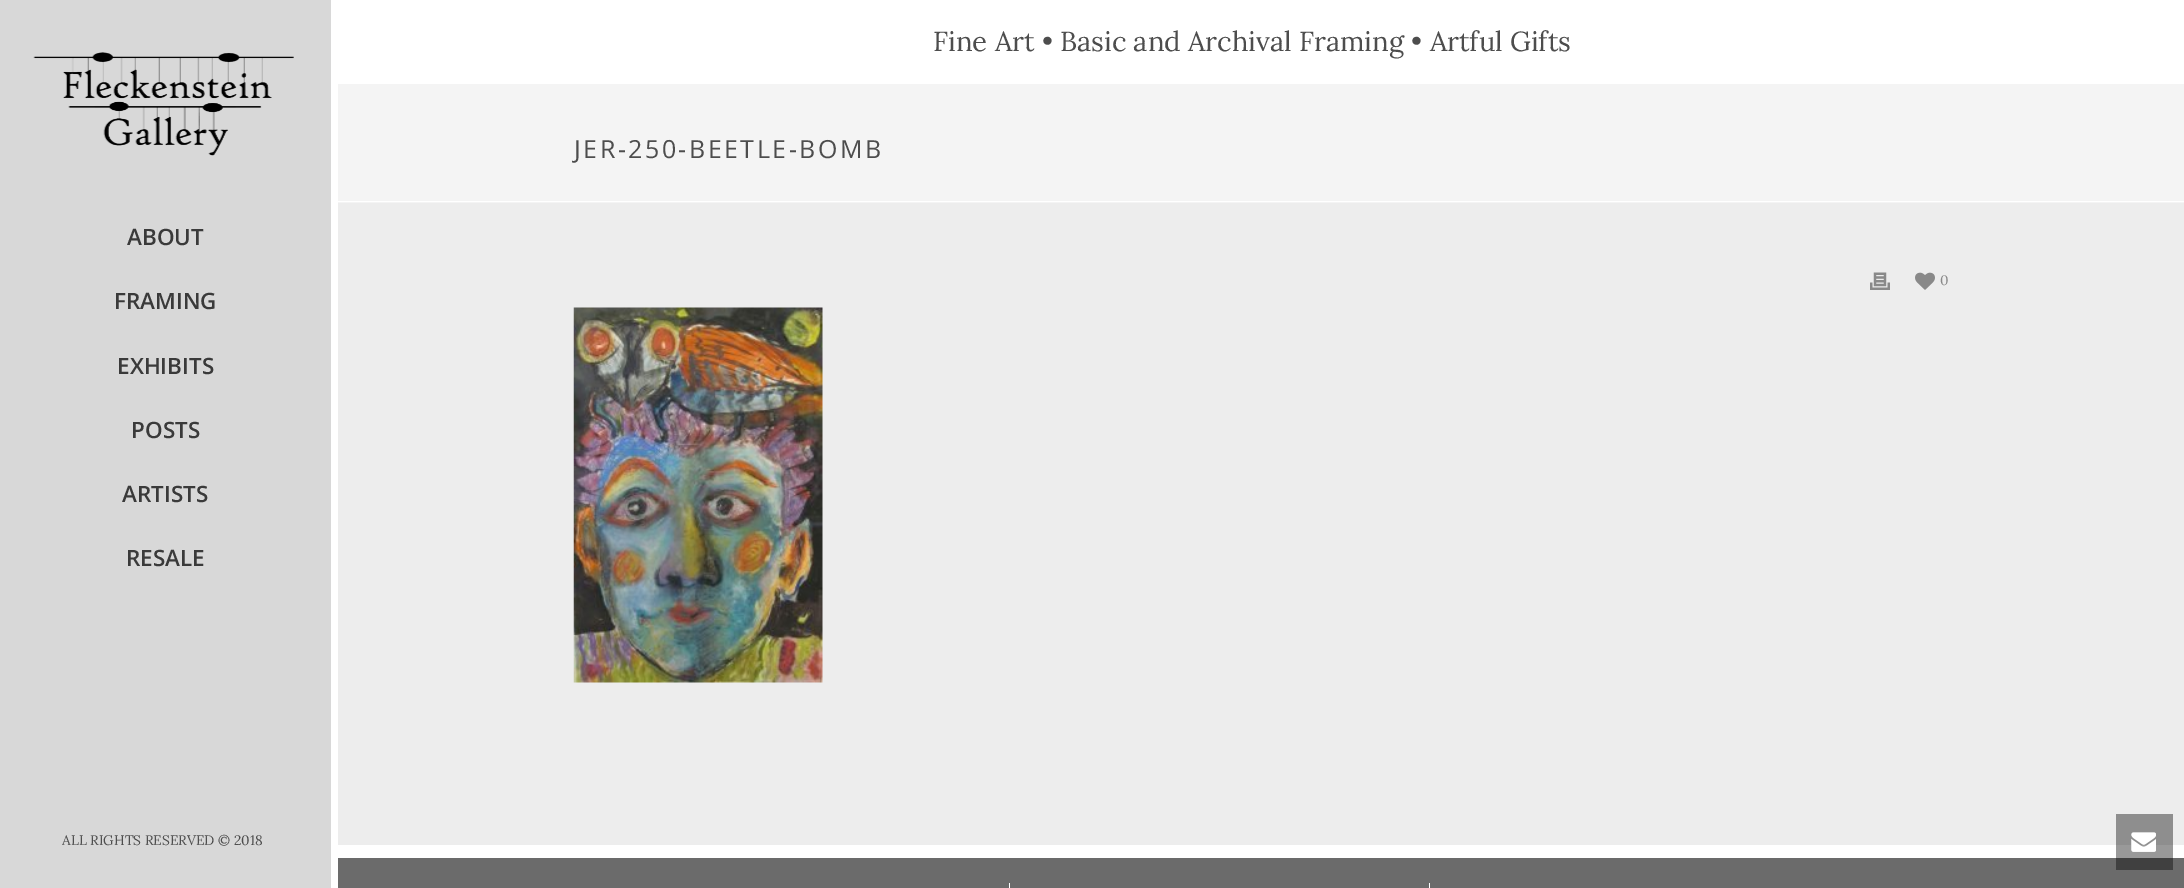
%!PS
<< /PageSize [2184 888] >> setpagedevice
/rgb { 3 { 255 div 3 1 roll } repeat setrgbcolor } def
/font { [ exch dup neg 0 0 3 -1 roll 0 0 ] selectfont } def
/text { moveto show } def
/picture { 5 dict begin { /h /w /y /x /name } { exch def } forall
  gsave x y translate w h scale
  w h 8 [w 0 0 h 0 0] name (r) file false 3 colorimage grestore end } def
0 888 translate 1 -1 scale
4 setmiterlimit
255 255 255 rgb
0 0 2184 888 rectfill
244 244 244 rgb
338 84 1846 119 rectfill
255 255 255 rgb
338 201 1846 1 rectfill
216 216 216 rgb
0 0 331 888 rectfill
(img_01.rgb) 33 52 261 104 picture
237 237 237 rgb
338 203 1846 642 rectfill
142 142 142 rgb
2116 814 57 31 rectfill
(img_02.rgb) 1870 272 20 18 picture
(img_03.rgb) 1915 272 20 18 picture
(img_04.rgb) 573 307 250 376 picture
107 107 107 rgb
338 858 1846 30 rectfill
64 64 64 rgb
2116 858 57 12 rectfill
153 153 153 rgb
2116 845 57 13 rectfill
255 255 255 rgb
1009 883 1 5 rectfill
1429 883 1 5 rectfill
(img_05.rgb) 2131 832 25 20 picture
/Lora-Regular 27.5 font
77 77 77 rgb
(Fine Art • Basic and Archival Framing • Artful Gifts) 933 51 text
/OpenSans-SemiBold 22.5 font
58 58 58 rgb
(ABOUT) 127 245 text
(FRAMING) 114 309 text
(EXHIBITS) 117 374 text
(POSTS) 131 438 text
(ARTISTS) 122 502 text
(RESALE) 126 566 text
/Lora-Regular 13.75 font
77 77 77 rgb
(ALL RIGHTS RESERVED © 2018) 62 845 text
/OpenSans-Regular 25 font
574 158 moveto 2.5 0 (JER-250-BEETLE-BOMB) ashow
/Lora-Regular 13.75 font
137 137 137 rgb
(0) 1940 285 text
showpage
